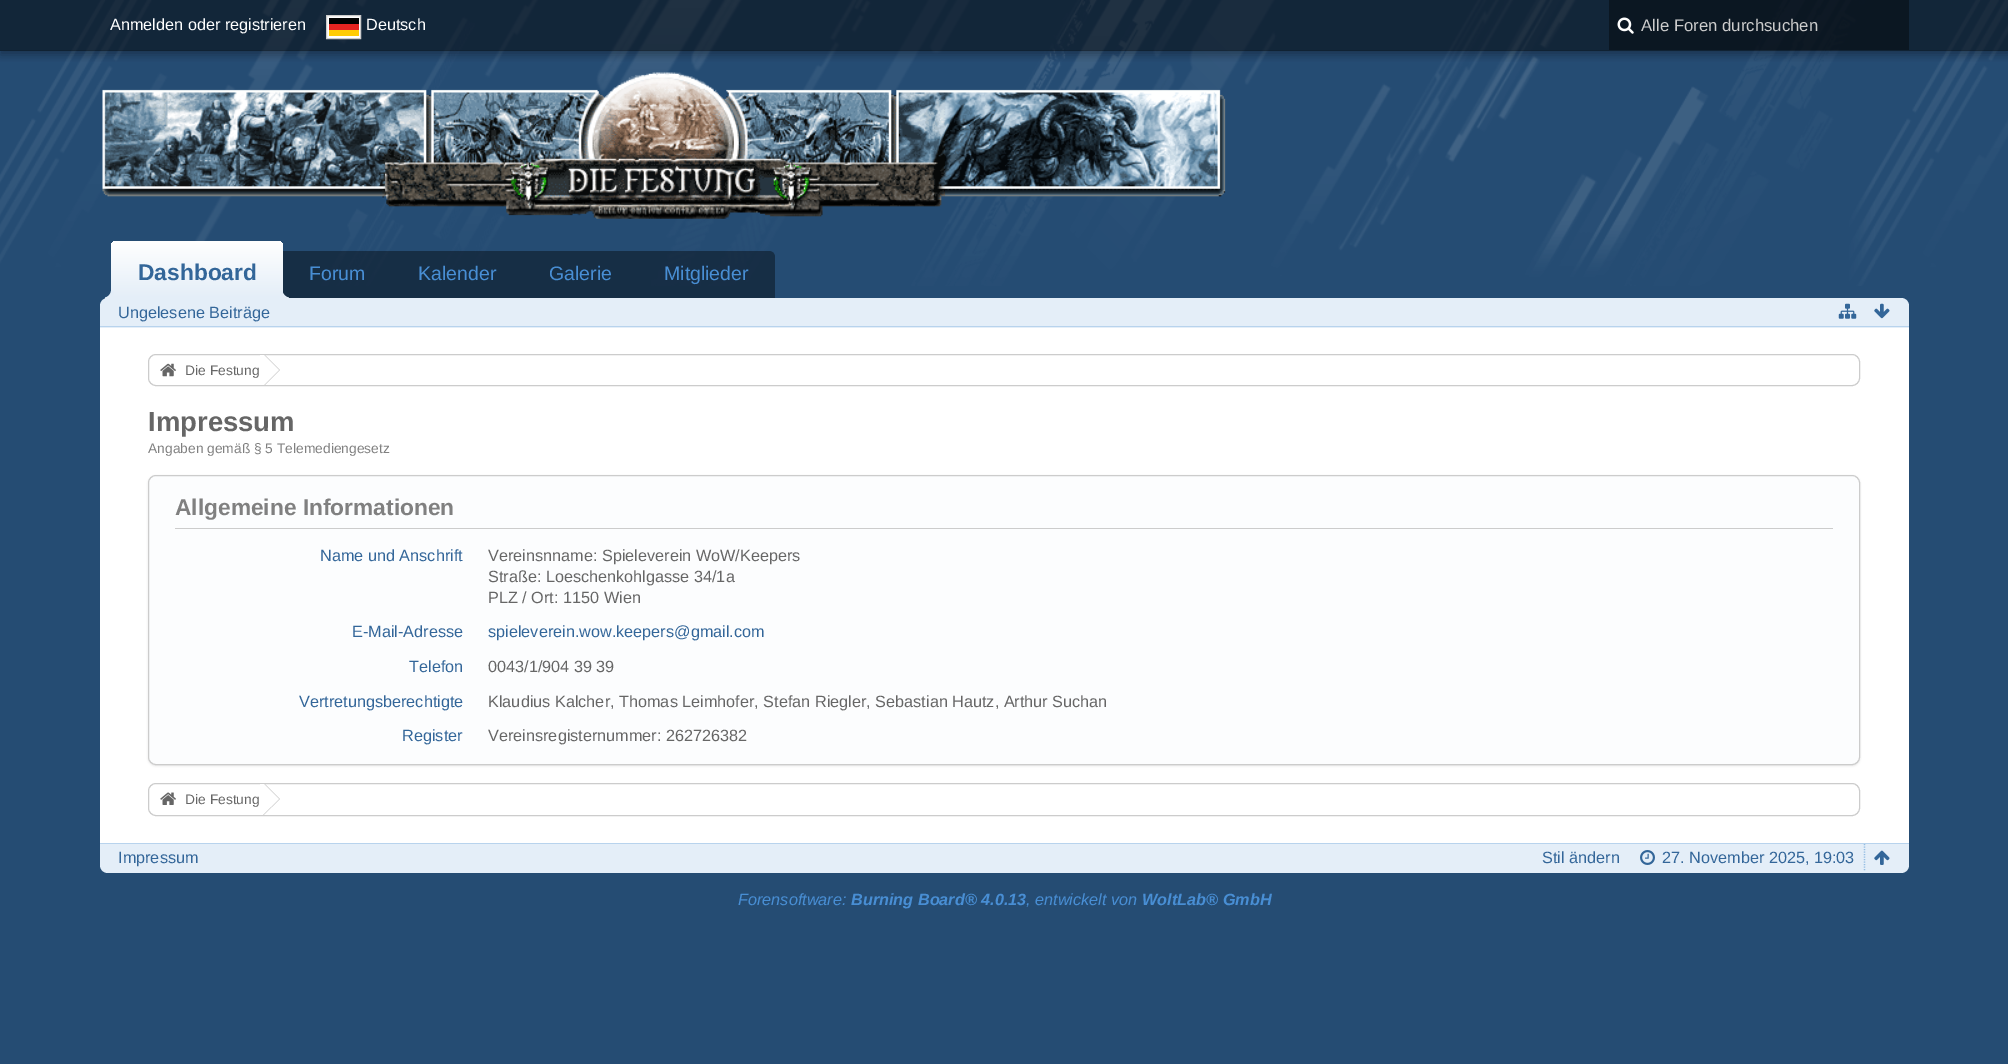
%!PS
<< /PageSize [2008 1064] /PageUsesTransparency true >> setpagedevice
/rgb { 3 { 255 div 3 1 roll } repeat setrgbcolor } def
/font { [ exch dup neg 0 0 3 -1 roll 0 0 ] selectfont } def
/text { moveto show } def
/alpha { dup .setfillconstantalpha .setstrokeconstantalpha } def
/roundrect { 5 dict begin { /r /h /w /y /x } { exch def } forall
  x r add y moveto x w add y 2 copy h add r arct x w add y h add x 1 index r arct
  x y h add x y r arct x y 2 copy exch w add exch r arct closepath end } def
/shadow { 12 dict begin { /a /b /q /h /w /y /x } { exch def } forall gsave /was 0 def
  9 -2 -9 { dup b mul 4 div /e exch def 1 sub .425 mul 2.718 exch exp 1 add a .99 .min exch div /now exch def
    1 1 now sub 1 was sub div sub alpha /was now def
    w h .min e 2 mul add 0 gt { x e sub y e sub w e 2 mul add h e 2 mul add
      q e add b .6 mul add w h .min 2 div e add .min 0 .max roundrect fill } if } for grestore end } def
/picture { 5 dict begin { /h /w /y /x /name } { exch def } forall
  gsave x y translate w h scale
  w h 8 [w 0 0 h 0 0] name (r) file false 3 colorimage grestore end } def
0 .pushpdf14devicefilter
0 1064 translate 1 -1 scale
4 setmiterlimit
37 76 115 rgb
0 0 2008 1064 rectfill
(img_01.rgb) 0 0 2008 286 picture
gsave
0 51 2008 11 rectclip
0 0 0 rgb
0 4 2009 51 0 4.5 0.3 shadow
grestore
0.5 alpha
0 0 0 rgb
0 0 2008 51 rectfill
0.1 alpha
0 50 2008 1 rectfill
1 alpha
255 255 255 rgb
326.5 15.5 moveto 34 0 rlineto 0 23 rlineto -34 0 rlineto closepath gsave fill grestore
204 204 204 rgb
stroke
1 2 2 rgb
329 18 30 6 rectfill
229 36 32 rgb
329 24 30 6 rectfill
255 204 4 rgb
329 30 30 6 rectfill
0.4 alpha
0 0 0 rgb
1609 0 300 50 rectfill
1 alpha
(img_02.rgb) 1617 17 17 17 picture
(img_03.rgb) 102 72 1124 147 picture
0.4 alpha
117 251 moveto 652 0 rlineto 3.5 0 6 2.5 6 6 rcurveto 0 41 rlineto -664 0 rlineto 0 -41 rlineto 0 -3.5 2.5 -6 6 -6 rcurveto closepath fill
1 alpha
gsave 117 241 moveto 160 0 rlineto 3.5 0 6 2.5 6 6 rcurveto 0 51 rlineto -172 0 rlineto 0 -51 rlineto 0 -3.5 2.5 -6 6 -6 rcurveto closepath clip newpath
<< /ShadingType 2 /ColorSpace /DeviceRGB /Coords [197 241 197 298] /Extend [true true] /Function << /FunctionType 2 /Domain [0 1] /C0 [1 1 1] /C1 [0.894 0.933 0.973] /N 1 >> >> shfill grestore
228 238 248 rgb
108 298 moveto 1793 0 rlineto 4.5 0 8 3.5 8 8 rcurveto 0 22 rlineto -1809 0 rlineto 0 -22 rlineto 0 -4.5 3.5 -8 8 -8 rcurveto closepath fill
105 297.5 moveto 0 2.5 rlineto 5.5 0 9 -3.5 9 -9 rcurveto -3 0 rlineto -0.5 3.5 -3 6 -6 6.5 rcurveto closepath fill
280 291 moveto 0 5.5 3.5 9 9 9 rcurveto 0 -2.5 rlineto -3.5 -0.5 -6 -3 -6.5 -6.5 rcurveto closepath fill
184 211 237 rgb
100 326 1809 1 rectfill
(img_04.rgb) 1838 303 19 16 picture
(img_05.rgb) 1874 303 16 16 picture
255 255 255 rgb
100 328 1809 515 rectfill
204 204 204 rgb
148.5 354.5 1711 31 7.5 roundrect stroke
(img_06.rgb) 160 363 16 14 picture
265 355 moveto 15 15 rlineto -15 15 rlineto -4 0 rlineto 0 -30 rlineto closepath fill
255 255 255 rgb
264 355 moveto 15 15 rlineto -15 15 rlineto -4 0 rlineto 0 -30 rlineto closepath fill
0 0 0 rgb
148 476 1712 290 8 1 0.1 shadow
252 253 254 rgb
148.5 475.5 1711 289 7.5 roundrect gsave fill grestore
204 204 204 rgb
stroke
175 528 1658 1 rectfill
148.5 783.5 1711 32 7.5 roundrect stroke
(img_07.rgb) 160 792 16 13 picture
265 784 moveto 15 15 rlineto -16.5 16 rlineto -2.5 0 rlineto 0 -31 rlineto closepath fill
255 255 255 rgb
264 784 moveto 15 15 rlineto -16.5 16 rlineto -2.5 0 rlineto 0 -31 rlineto closepath fill
228 238 248 rgb
100 843 moveto 1809 0 rlineto 0 22 rlineto 0 4.5 -3.5 8 -8 8 rcurveto -1793 0 rlineto -4.5 0 -8 -3.5 -8 -8 rcurveto closepath fill
184 211 237 rgb
100 843 1809 1 rectfill
147 189 227 rgb
1.2 setlinewidth
[1.25 1.25] 0 setdash
1864.5 844 moveto 0 27 rlineto stroke
(img_08.rgb) 1640 850 15 15 picture
(img_09.rgb) 1874 850 16 15 picture
/LiberationSans-Regular 16.25 font
255 255 255 rgb
(Anmelden oder registrieren) 110 30 text
(Deutsch) 366 30 text
/LiberationSans-Regular 16.75 font
204 204 204 rgb
(Alle Foren durchsuchen) 1641 31 text
/LiberationSans-Bold 22.75 font
51 102 153 rgb
(Dashboard) 138 280 text
/LiberationSans-Regular 19.5 font
72 142 212 rgb
(Forum) 309 280 text
(Kalender) 418 280 text
(Galerie) 549 280 text
(Mitglieder) 664 280 text
/LiberationSans-Regular 16.25 font
51 102 153 rgb
(Ungelesene Beiträge) 118 318 text
/LiberationSans-Regular 13.8 font
102 102 102 rgb
(Die Festung) 185 375 text
/LiberationSans-Bold 27.5 font
(Impressum) 148 431 text
/LiberationSans-Regular 13.8 font
128 128 128 rgb
(Angaben gemäß § 5 Telemediengesetz) 148 453 text
/LiberationSans-Bold 22.75 font
(Allgemeine Informationen) 175 515 text
/LiberationSans-Regular 16.25 font
51 102 153 rgb
(Name und Anschrift) 320 561 text
102 102 102 rgb
(Vereinsnname: Spieleverein WoW/Keepers) 488 561 text
(Straße: Loeschenkohlgasse 34/1a) 488 582 text
(PLZ / Ort: 1150 Wien) 488 603 text
51 102 153 rgb
(E-Mail-Adresse) 352 637 text
(spieleverein.wow.keepers@gmail.com) 488 637 text
(Telefon) 409 672 text
102 102 102 rgb
(0043/1/904 39 39) 488 672 text
51 102 153 rgb
(Vertretungsberechtigte) 299 707 text
102 102 102 rgb
(Klaudius Kalcher, Thomas Leimhofer, Stefan Riegler, Sebastian Hautz, Arthur Suchan) 488 707 text
51 102 153 rgb
(Register) 402 741 text
102 102 102 rgb
(Vereinsregisternummer: 262726382) 488 741 text
/LiberationSans-Regular 13.8 font
(Die Festung) 185 804 text
/LiberationSans-Regular 16.25 font
51 102 153 rgb
(Impressum) 118 863 text
(Stil ändern) 1542 863 text
(27. November 2025, 19:03) 1662 863 text
/LiberationSans-Italic 16.25 font
72 142 212 rgb
(Forensoftware:) 738 905 text
/LiberationSans-BoldItalic 16.25 font
(Burning Board® 4.0.13) 851 905 text
/LiberationSans-Italic 16.25 font
(, entwickelt von) 1026 905 text
/LiberationSans-BoldItalic 16.25 font
(WoltLab® GmbH) 1142 905 text
.poppdf14devicefilter showpage
